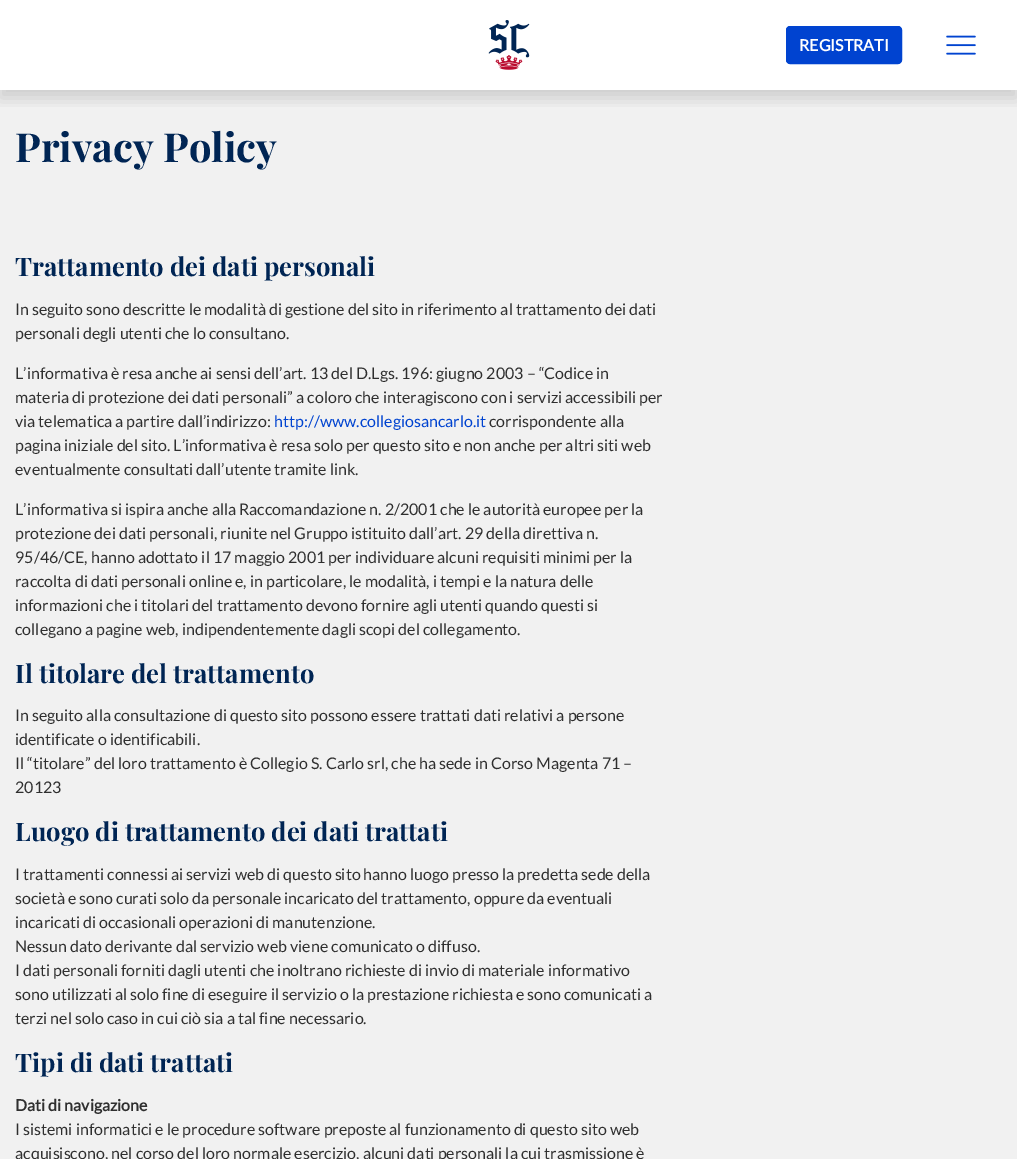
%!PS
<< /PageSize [1017 1159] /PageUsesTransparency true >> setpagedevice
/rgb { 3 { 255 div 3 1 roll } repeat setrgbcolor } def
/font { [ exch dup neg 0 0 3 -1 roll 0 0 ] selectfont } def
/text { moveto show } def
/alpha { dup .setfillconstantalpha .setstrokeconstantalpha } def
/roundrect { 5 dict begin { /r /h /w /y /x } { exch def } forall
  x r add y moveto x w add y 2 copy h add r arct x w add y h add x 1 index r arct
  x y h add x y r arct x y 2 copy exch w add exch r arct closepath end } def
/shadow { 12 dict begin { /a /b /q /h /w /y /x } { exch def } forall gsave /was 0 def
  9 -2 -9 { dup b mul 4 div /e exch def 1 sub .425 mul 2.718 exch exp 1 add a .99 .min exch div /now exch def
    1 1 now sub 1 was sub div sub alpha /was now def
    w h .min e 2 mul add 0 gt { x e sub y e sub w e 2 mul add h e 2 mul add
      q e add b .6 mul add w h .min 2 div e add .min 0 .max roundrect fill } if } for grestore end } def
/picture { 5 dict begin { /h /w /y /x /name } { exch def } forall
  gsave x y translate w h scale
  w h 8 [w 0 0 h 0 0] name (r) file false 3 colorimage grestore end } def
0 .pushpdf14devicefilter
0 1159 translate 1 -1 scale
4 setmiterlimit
255 255 255 rgb
0 0 1017 1159 rectfill
241 241 241 rgb
0 90 1017 1069 rectfill
gsave
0 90 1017 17 rectclip
0 0 0 rgb
0 8 1017 90 0 8 0.15 shadow
grestore
(img_01.rgb) 488 20 42 50 picture
0 67 208 rgb
786.5 26.5 115 37 3.5 roundrect gsave fill grestore
stroke
(img_02.rgb) 946 35 30 20 picture
/Lato-Bold 16 font
255 255 255 rgb
(REGISTRATI) 799 51 text
/PlayfairDisplay-Bold 40 font
0 37 84 rgb
(Privacy Policy) 15 162 text
/PlayfairDisplay-Bold 25.6 font
(Trattamento dei dati personali) 15 276 text
/Lato-Regular 16 font
47 47 47 rgb
(In seguito sono descritte le modalità di gestione del sito in riferimento al trattamento dei dati) 15 315 text
(personali degli utenti che lo consultano.) 15 339 text
(L’informativa è resa anche ai sensi dell’art. 13 del D.Lgs. 196: giugno 2003 – “Codice in) 15 379 text
(materia di protezione dei dati personali” a coloro che interagiscono con i servizi accessibili per) 15 403 text
(via telematica a partire dall’indirizzo:) 15 427 text
0 67 208 rgb
(http://www.collegiosancarlo.it) 274 427 text
47 47 47 rgb
(corrispondente alla) 489 427 text
(pagina iniziale del sito. L’informativa è resa solo per questo sito e non anche per altri siti web) 15 451 text
(eventualmente consultati dall’utente tramite link.) 15 475 text
(L’informativa si ispira anche alla Raccomandazione n. 2/2001 che le autorità europee per la) 15 515 text
(protezione dei dati personali, riunite nel Gruppo istituito dall’art. 29 della direttiva n.) 15 539 text
(95/46/CE, hanno adottato il 17 maggio 2001 per individuare alcuni requisiti minimi per la) 15 563 text
(raccolta di dati personali online e, in particolare, le modalità, i tempi e la natura delle) 15 587 text
(informazioni che i titolari del trattamento devono fornire agli utenti quando questi si) 15 611 text
(collegano a pagine web, indipendentemente dagli scopi del collegamento.) 15 635 text
/PlayfairDisplay-Bold 25.6 font
0 37 84 rgb
(Il titolare del trattamento) 15 683 text
/Lato-Regular 16 font
47 47 47 rgb
(In seguito alla consultazione di questo sito possono essere trattati dati relativi a persone) 15 721 text
(identificate o identificabili.) 15 745 text
(Il “titolare” del loro trattamento è Collegio S. Carlo srl, che ha sede in Corso Magenta 71 –) 15 769 text
(20123) 15 793 text
/PlayfairDisplay-Bold 25.6 font
0 37 84 rgb
(Luogo di trattamento dei dati trattati) 15 841 text
/Lato-Regular 16 font
47 47 47 rgb
(I trattamenti connessi ai servizi web di questo sito hanno luogo presso la predetta sede della) 15 880 text
(società e sono curati solo da personale incaricato del trattamento, oppure da eventuali) 15 904 text
(incaricati di occasionali operazioni di manutenzione.) 15 928 text
(Nessun dato derivante dal servizio web viene comunicato o diffuso.) 15 952 text
(I dati personali forniti dagli utenti che inoltrano richieste di invio di materiale informativo) 15 976 text
(sono utilizzati al solo fine di eseguire il servizio o la prestazione richiesta e sono comunicati a) 15 1000 text
(terzi nel solo caso in cui ciò sia a tal fine necessario.) 15 1024 text
/PlayfairDisplay-Bold 25.6 font
0 37 84 rgb
(Tipi di dati trattati) 15 1072 text
/Lato-Bold 16 font
47 47 47 rgb
(Dati di navigazione) 15 1111 text
/Lato-Regular 16 font
(I sistemi informatici e le procedure software preposte al funzionamento di questo sito web) 15 1135 text
(acquisiscono, nel corso del loro normale esercizio, alcuni dati personali la cui trasmissione è) 15 1159 text
.poppdf14devicefilter showpage
